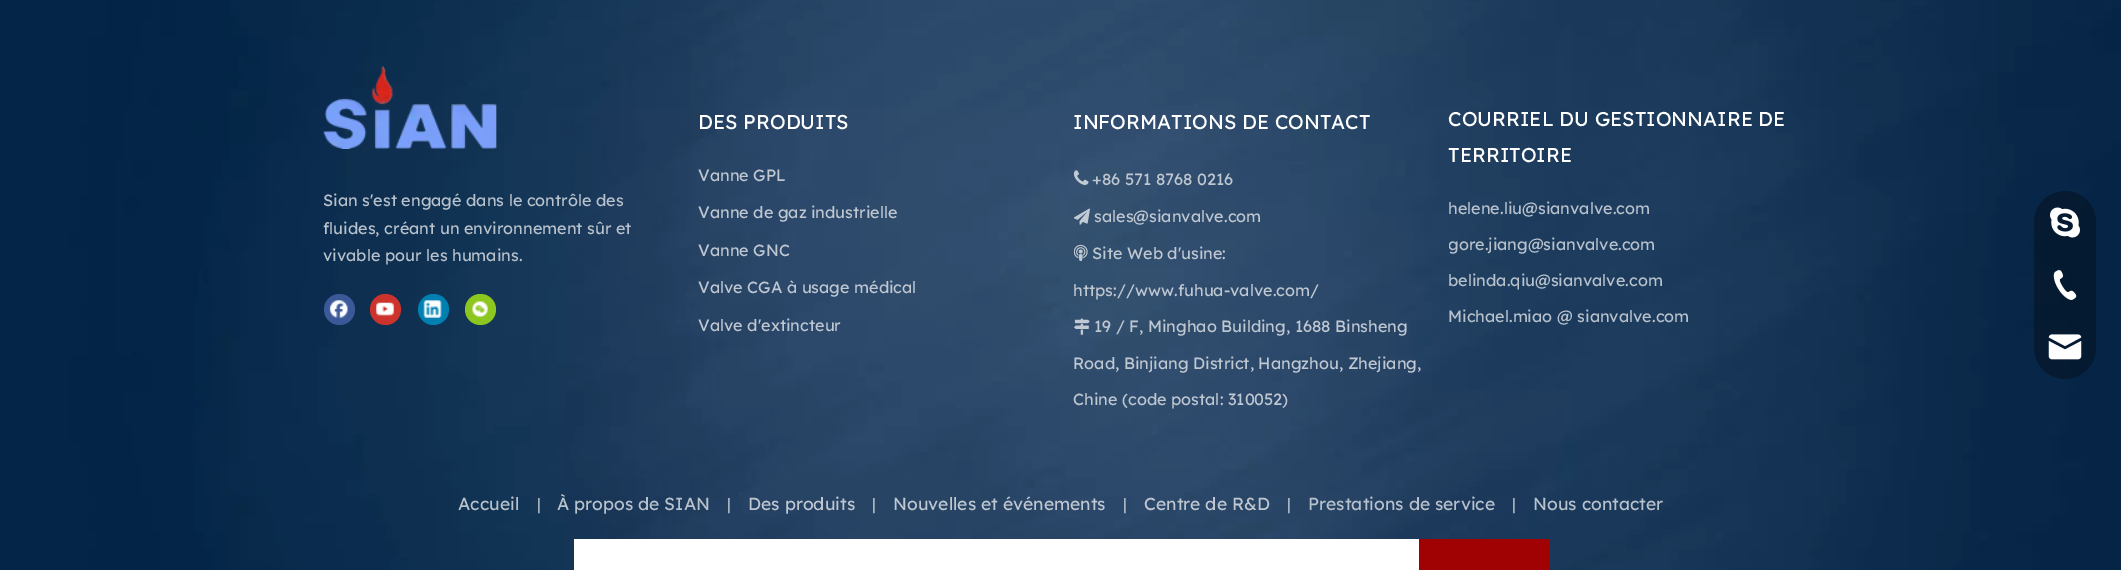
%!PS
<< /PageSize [2121 570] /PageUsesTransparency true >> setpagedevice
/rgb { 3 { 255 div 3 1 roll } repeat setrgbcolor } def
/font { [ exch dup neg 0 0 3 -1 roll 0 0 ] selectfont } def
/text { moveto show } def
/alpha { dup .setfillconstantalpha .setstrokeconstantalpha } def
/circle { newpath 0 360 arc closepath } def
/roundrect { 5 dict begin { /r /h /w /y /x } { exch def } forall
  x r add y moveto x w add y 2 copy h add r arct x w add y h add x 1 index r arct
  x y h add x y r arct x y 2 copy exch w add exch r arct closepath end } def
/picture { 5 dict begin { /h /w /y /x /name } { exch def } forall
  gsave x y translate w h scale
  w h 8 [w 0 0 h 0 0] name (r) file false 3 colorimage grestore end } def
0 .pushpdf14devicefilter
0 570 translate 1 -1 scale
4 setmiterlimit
255 255 255 rgb
0 0 2121 570 rectfill
(img_01.rgb) 0 0 2121 570 picture
(img_02.rgb) 323 66 174 83 picture
59 89 152 rgb
339.5 309.5 15.5 circle fill
(img_03.rgb) 329 300 19 18 picture
205 51 45 rgb
385.5 309.5 15.5 circle fill
(img_04.rgb) 376 302 18 14 picture
0 127 177 rgb
433.5 309.5 15.5 circle fill
(img_05.rgb) 423 300 19 18 picture
141 198 31 rgb
480.5 309.5 15.5 circle fill
(img_06.rgb) 472 301 16 16 picture
0.3 alpha
0 0 0 rgb
2034 191 62 188 31 roundrect fill
1 alpha
(img_07.rgb) 2050 207 30 31 picture
(img_08.rgb) 2053 270 24 30 picture
(img_09.rgb) 2048 334 34 26 picture
(img_10.rgb) 1074 170 15 15 picture
(img_11.rgb) 1074 208 16 17 picture
(img_12.rgb) 1074 244 14 17 picture
(img_13.rgb) 1074 318 16 17 picture
255 255 255 rgb
574 539 845 31 rectfill
160 2 3 rgb
1419 539 130 31 rectfill
/LexendDeca-Regular 16.25 font
184 194 204 rgb
(Sian s'est engagé dans le contrôle des) 323 206 text
(fluides, créant un environnement sûr et) 323 234 text
(vivable pour les humains.) 323 261 text
/LexendDeca-Regular 20 font
255 255 255 rgb
(DES PRODUITS) 698 129 text
/LexendDeca-Regular 16.25 font
191 199 209 rgb
(Vanne GPL) 698 181 text
(Vanne de gaz industrielle) 698 218 text
(Vanne GNC) 698 256 text
(Valve CGA à usage médical) 698 293 text
(Valve d'extincteur) 698 331 text
/LexendDeca-Regular 20 font
255 255 255 rgb
(INFORMATIONS DE CONTACT) 1073 129 text
/LexendDeca-Regular 16.25 font
191 199 209 rgb
(+86) 1092 185 text
(571 8768 0216) 1125 185 text
(sales@sianvalve.com) 1094 222 text
(Site Web d'usine:) 1092 259 text
(https://www.fuhua-valve.com/) 1073 296 text
(19 / F, Minghao Building, 1688 Binsheng) 1094 332 text
(Road, Binjiang District, Hangzhou, Zhejiang,) 1073 369 text
(Chine \(code postal: 310052\)) 1073 405 text
/LexendDeca-Regular 20 font
255 255 255 rgb
(COURRIEL DU GESTIONNAIRE DE) 1448 126 text
(TERRITOIRE) 1448 162 text
/LexendDeca-Regular 16.25 font
184 194 204 rgb
(helene.liu@sianvalve.com) 1448 214 text
gsave
1449 191 350 179 rectclip
(gore.jiang@sianvalve.com) 1448 250 text
grestore
(belinda.qiu@sianvalve.com) 1448 286 text
(Michael.miao) 1448 322 text
(@ sianvalve.com) 1557 322 text
/LexendDeca-Regular 17.5 font
(Accueil) 458 510 text
/LexendDeca-Regular 16.25 font
161 175 187 rgb
(|) 537 510 text
/LexendDeca-Regular 17.5 font
184 194 204 rgb
(À propos de SIAN) 557 510 text
/LexendDeca-Regular 16.25 font
167 179 192 rgb
(|) 727 510 text
/LexendDeca-Regular 17.5 font
191 199 209 rgb
(Des produits) 748 510 text
/LexendDeca-Regular 16.25 font
167 179 192 rgb
(|) 872 510 text
/LexendDeca-Regular 17.5 font
191 199 209 rgb
(Nouvelles et événements) 893 510 text
/LexendDeca-Regular 16.25 font
167 179 192 rgb
(|) 1123 510 text
/LexendDeca-Regular 17.5 font
191 199 209 rgb
(Centre de R&D) 1144 510 text
/LexendDeca-Regular 16.25 font
167 179 192 rgb
(|) 1287 510 text
/LexendDeca-Regular 17.5 font
184 194 204 rgb
(Prestations de service) 1308 510 text
/LexendDeca-Regular 16.25 font
161 175 187 rgb
(|) 1512 510 text
/LexendDeca-Regular 17.5 font
184 194 204 rgb
(Nous contacter) 1533 510 text
.poppdf14devicefilter showpage
